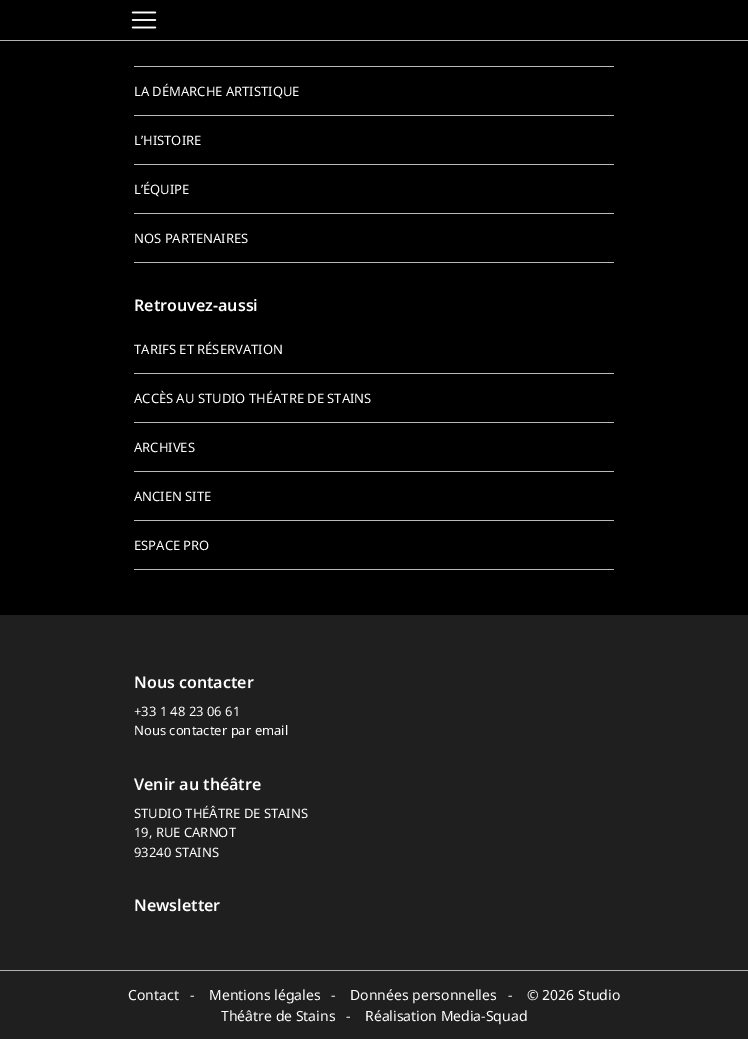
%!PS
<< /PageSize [748 1039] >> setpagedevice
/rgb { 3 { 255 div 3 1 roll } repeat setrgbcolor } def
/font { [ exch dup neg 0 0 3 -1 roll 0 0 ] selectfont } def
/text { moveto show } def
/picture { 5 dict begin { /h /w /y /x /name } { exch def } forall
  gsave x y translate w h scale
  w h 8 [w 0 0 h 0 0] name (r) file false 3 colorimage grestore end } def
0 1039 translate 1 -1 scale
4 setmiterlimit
0 0 0 rgb
0 0 748 1039 rectfill
177 177 177 rgb
0 40 748 1 rectfill
(img_01.rgb) 131 11 26 18 picture
186 186 186 rgb
134 66 480 1 rectfill
134 115 480 1 rectfill
134 164 480 1 rectfill
134 213 480 1 rectfill
134 262 480 1 rectfill
134 373 480 1 rectfill
134 422 480 1 rectfill
134 471 480 1 rectfill
134 520 480 1 rectfill
134 569 480 1 rectfill
31 31 31 rgb
0 615 748 355 rectfill
0 971 748 68 rectfill
177 177 177 rgb
0 970 748 1 rectfill
/NotoSans-Regular 13 font
255 255 255 rgb
(LA DÉMARCHE ARTISTIQUE) 134 96 text
(L’HISTOIRE) 134 145 text
(L’ÉQUIPE) 134 194 text
(NOS PARTENAIRES) 134 243 text
/NotoSans-SemiBold 16 font
(Retrouvez-aussi) 134 311 text
/NotoSans-Regular 13 font
(TARIFS ET RÉSERVATION) 134 354 text
(ACCÈS AU STUDIO THÉATRE DE STAINS) 134 403 text
(ARCHIVES) 134 452 text
(ANCIEN SITE) 134 501 text
(ESPACE PRO) 134 550 text
/NotoSans-SemiBold 16 font
(Nous contacter) 134 688 text
/NotoSans-Regular 13 font
(+33 1 48 23 06 61) 134 716 text
(Nous contacter par email) 134 735 text
/NotoSans-SemiBold 16 font
(Venir au théâtre) 134 790 text
/NotoSans-Regular 13 font
(STUDIO THÉÂTRE DE STAINS) 134 818 text
(19, RUE CARNOT) 134 837 text
(93240 STAINS) 134 857 text
/NotoSans-SemiBold 16 font
(Newsletter) 134 911 text
/NotoSans-Regular 14 font
(Contact) 128 1000 text
(-) 190 1000 text
(Mentions légales) 209 1000 text
(-) 331 1000 text
(Données personnelles) 350 1000 text
(-) 508 1000 text
(© 2026 Studio) 527 1000 text
(Théâtre de Stains   -) 221 1021 text
(Réalisation Media-Squad) 365 1021 text
showpage
